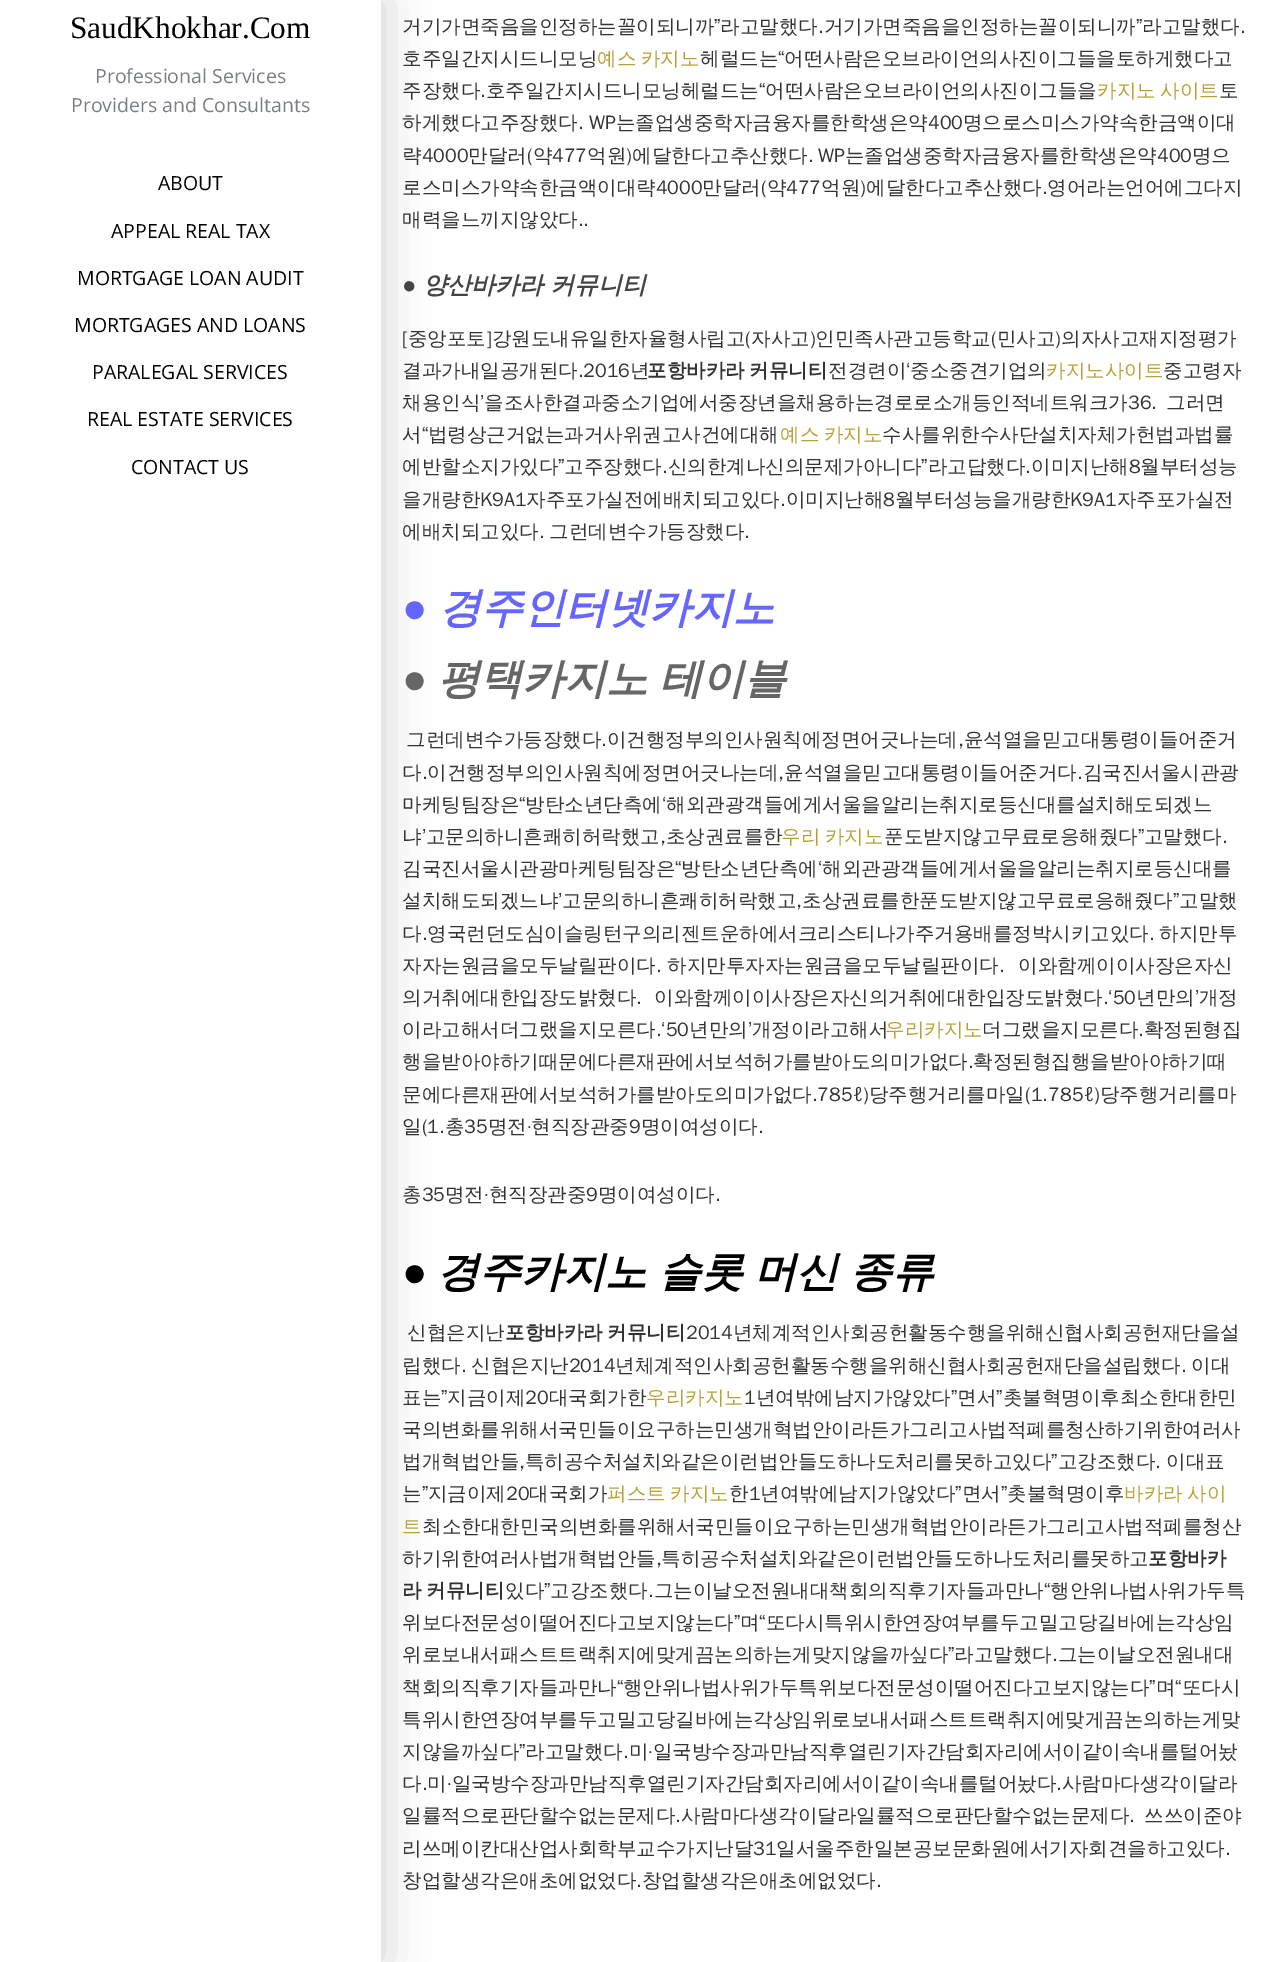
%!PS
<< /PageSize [1267 1962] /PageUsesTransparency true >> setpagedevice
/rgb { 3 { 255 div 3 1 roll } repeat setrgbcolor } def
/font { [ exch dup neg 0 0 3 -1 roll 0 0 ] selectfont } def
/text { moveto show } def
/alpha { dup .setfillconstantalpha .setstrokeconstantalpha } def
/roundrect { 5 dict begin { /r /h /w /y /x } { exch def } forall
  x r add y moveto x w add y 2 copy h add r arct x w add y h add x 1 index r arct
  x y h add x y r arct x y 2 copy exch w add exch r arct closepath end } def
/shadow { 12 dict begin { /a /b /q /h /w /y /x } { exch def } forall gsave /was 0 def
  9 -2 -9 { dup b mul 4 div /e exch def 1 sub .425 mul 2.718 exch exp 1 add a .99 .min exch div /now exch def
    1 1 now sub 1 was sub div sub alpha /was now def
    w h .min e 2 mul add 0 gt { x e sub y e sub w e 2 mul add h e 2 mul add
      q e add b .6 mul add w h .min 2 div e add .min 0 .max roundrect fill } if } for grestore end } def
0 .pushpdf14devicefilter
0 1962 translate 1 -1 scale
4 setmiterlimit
255 255 255 rgb
0 0 1267 1962 rectfill
0 0 0 rgb
0 0 381 1962 0 22.5 0.2 shadow
255 255 255 rgb
0 0 381 1962 rectfill
/LiberationSerif-Regular 31.25 font
0 0 0 rgb
(SaudKhokhar.Com) 70 38 text
/OpenSans-Regular 19.5 font
121 125 130 rgb
(Professional Services) 95 83 text
(Providers and Consultants) 71 112 text
0 0 0 rgb
(ABOUT) 158 190 text
(APPEAL REAL TAX) 111 238 text
(MORTGAGE LOAN AUDIT) 77 285 text
(MORTGAGES AND LOANS) 74 332 text
(PARALEGAL SERVICES) 92 379 text
(REAL ESTATE SERVICES) 87 426 text
(CONTACT US) 131 474 text
/WenQuanYiZenHei-Medium 19.5 font
51 51 51 rgb
(거기가면죽음을인정하는꼴이되니까”라고말했다.거기가면죽음을인정하는꼴이되니까”라고말했다.) 402 33 text
(호주일간지시드니모닝) 402 65 text
184 161 56 rgb
597 65 moveto -1 0 32 (예스 카지노) widthshow
51 51 51 rgb
(헤럴드는“어떤사람은오브라이언의사진이그들을토하게했다고) 700 65 text
(주장했다.호주일간지시드니모닝헤럴드는“어떤사람은오브라이언의사진이그들을) 402 97 text
184 161 56 rgb
1097 97 moveto -1 0 32 (카지노 사이트) widthshow
51 51 51 rgb
(토) 1219 97 text
(하게했다고주장했다.) 402 129 text
(WP는졸업생중학자금융자를한학생은약400명으로스미스가약속한금액이대) 589 129 text
(략4000만달러\(약477억원\)에달한다고추산했다.) 402 162 text
(WP는졸업생중학자금융자를한학생은약400명으) 818 162 text
(로스미스가약속한금액이대략4000만달러\(약477억원\)에달한다고추산했다.영어라는언어에그다지) 402 194 text
(매력을느끼지않았다..) 402 226 text
/LiberationSans-BoldItalic 24 font
68 68 70 rgb
(●) 402 293 text
/WenQuanYiZenHei-BoldItalic 24 font
(양산바카라 커뮤니티) 423 293 text
/WenQuanYiZenHei-Medium 19.5 font
51 51 51 rgb
([중앙포토]강원도내유일한자율형사립고\(자사고\)인민족사관고등학교\(민사고\)의자사고재지정평가) 402 345 text
(결과가내일공개된다.2016년) 402 377 text
/WenQuanYiZenHei-Bold 19.5 font
647 377 moveto -1 0 32 (포항바카라 커뮤니티) widthshow
/WenQuanYiZenHei-Medium 19.5 font
(전경련이‘중소중견기업의) 828 377 text
184 161 56 rgb
(카지노사이트) 1046 377 text
51 51 51 rgb
(중고령자) 1163 377 text
(채용인식’을조사한결과중소기업에서중장년을채용하는경로로소개등인적네트워크가36.) 402 409 text
(그러면) 1166 409 text
(서“법령상근거없는과거사위권고사건에대해) 402 441 text
184 161 56 rgb
780 441 moveto -1 0 32 (예스 카지노) widthshow
51 51 51 rgb
(수사를위한수사단설치자체가헌법과법률) 882 441 text
(에반할소지가있다”고주장했다.신의한계나신의문제가아니다”라고답했다.이미지난해8월부터성능) 402 473 text
(을개량한K9A1자주포가실전에배치되고있다.이미지난해8월부터성능을개량한K9A1자주포가실전) 402 506 text
(에배치되고있다.) 402 538 text
(그런데변수가등장했다.) 549 538 text
/LiberationSans-BoldItalic 42 font
102 102 255 rgb
(●) 402 622 text
/WenQuanYiZenHei-BoldItalic 42 font
(경주인터넷카지노) 439 622 text
/LiberationSans-BoldItalic 42 font
102 102 102 rgb
(●) 402 693 text
/WenQuanYiZenHei-BoldItalic 42 font
438 693 moveto -1 0 32 (평택카지노 테이블) widthshow
/WenQuanYiZenHei-Medium 19.5 font
51 51 51 rgb
(그런데변수가등장했다.이건행정부의인사원칙에정면어긋나는데,윤석열을믿고대통령이들어준거) 406 746 text
(다.이건행정부의인사원칙에정면어긋나는데,윤석열을믿고대통령이들어준거다.김국진서울시관광) 402 779 text
(마케팅팀장은“방탄소년단측에‘해외관광객들에게서울을알리는취지로등신대를설치해도되겠느) 402 811 text
(냐’고문의하니흔쾌히허락했고,초상권료를한) 402 843 text
184 161 56 rgb
781 843 moveto -1 0 32 (우리 카지노) widthshow
51 51 51 rgb
(푼도받지않고무료로응해줬다”고말했다.) 884 843 text
(김국진서울시관광마케팅팀장은“방탄소년단측에‘해외관광객들에게서울을알리는취지로등신대를) 402 875 text
(설치해도되겠느냐’고문의하니흔쾌히허락했고,초상권료를한푼도받지않고무료로응해줬다”고말했) 402 907 text
(다.영국런던도심이슬링턴구의리젠트운하에서크리스티나가주거용배를정박시키고있다.) 402 940 text
(하지만투) 1159 940 text
(자자는원금을모두날릴판이다.) 402 972 text
(하지만투자자는원금을모두날릴판이다.) 667 972 text
(이와함께이이사장은자신) 1018 972 text
(의거취에대한입장도밝혔다.) 402 1004 text
(이와함께이이사장은자신의거취에대한입장도밝혔다.‘50년만의’개정) 654 1004 text
(이라고해서더그랬을지모른다.‘50년만의’개정이라고해서) 402 1036 text
184 161 56 rgb
(우리카지노) 885 1036 text
51 51 51 rgb
(더그랬을지모른다.확정된형집) 982 1036 text
(행을받아야하기때문에다른재판에서보석허가를받아도의미가없다.확정된형집행을받아야하기때) 402 1068 text
(문에다른재판에서보석허가를받아도의미가없다.785) 402 1101 text
/OpenSans-Regular 19.5 font
(ℓ) 853 1101 text
/WenQuanYiZenHei-Medium 19.5 font
(\)당주행거리를마일\(1.785) 863 1101 text
/OpenSans-Regular 19.5 font
(ℓ) 1084 1101 text
/WenQuanYiZenHei-Medium 19.5 font
(\)당주행거리를마) 1094 1101 text
(일\(1.총35명전·현직장관중9명이여성이다.) 402 1133 text
(총35명전·현직장관중9명이여성이다.) 402 1201 text
/LiberationSans-BoldItalic 42 font
0 0 0 rgb
(●) 402 1286 text
/WenQuanYiZenHei-BoldItalic 42 font
437 1286 moveto -1 0 32 (경주카지노 슬롯 머신 종류) widthshow
/WenQuanYiZenHei-Medium 19.5 font
51 51 51 rgb
(신협은지난) 407 1339 text
/WenQuanYiZenHei-Bold 19.5 font
505 1339 moveto -1 0 32 (포항바카라 커뮤니티) widthshow
/WenQuanYiZenHei-Medium 19.5 font
(2014년체계적인사회공헌활동수행을위해신협사회공헌재단을설) 686 1339 text
(립했다.) 402 1372 text
(신협은지난2014년체계적인사회공헌활동수행을위해신협사회공헌재단을설립했다.) 471 1372 text
(이대) 1191 1372 text
(표는”지금이제20대국회가한) 402 1404 text
184 161 56 rgb
(우리카지노) 646 1404 text
51 51 51 rgb
(1년여밖에남지가않았다”면서”촛불혁명이후최소한대한민) 744 1404 text
(국의변화를위해서국민들이요구하는민생개혁법안이라든가그리고사법적폐를청산하기위한여러사) 402 1436 text
(법개혁법안들,특히공수처설치와같은이런법안들도하나도처리를못하고있다”고강조했다.) 402 1468 text
(이대표) 1166 1468 text
(는”지금이제20대국회가) 402 1500 text
184 161 56 rgb
607 1500 moveto -1 0 32 (퍼스트 카지노) widthshow
51 51 51 rgb
(한1년여밖에남지가않았다”면서”촛불혁명이후) 729 1500 text
184 161 56 rgb
1124 1500 moveto -1 0 32 (바카라 사이) widthshow
(트) 402 1533 text
51 51 51 rgb
(최소한대한민국의변화를위해서국민들이요구하는민생개혁법안이라든가그리고사법적폐를청산) 422 1533 text
(하기위한여러사법개혁법안들,특히공수처설치와같은이런법안들도하나도처리를못하고) 402 1565 text
/WenQuanYiZenHei-Bold 19.5 font
(포항바카) 1148 1565 text
402 1597 moveto -1 0 32 (라 커뮤니티) widthshow
/WenQuanYiZenHei-Medium 19.5 font
(있다”고강조했다.그는이날오전원내대책회의직후기자들과만나“행안위나법사위가두특) 505 1597 text
(위보다전문성이떨어진다고보지않는다”며“또다시특위시한연장여부를두고밀고당길바에는각상임) 402 1629 text
(위로보내서패스트트랙취지에맞게끔논의하는게맞지않을까싶다”라고말했다.그는이날오전원내대) 402 1661 text
(책회의직후기자들과만나“행안위나법사위가두특위보다전문성이떨어진다고보지않는다”며“또다시) 402 1694 text
(특위시한연장여부를두고밀고당길바에는각상임위로보내서패스트트랙취지에맞게끔논의하는게맞) 402 1726 text
(지않을까싶다”라고말했다.미·일국방수장과만남직후열린기자간담회자리에서이같이속내를털어놨) 402 1758 text
(다.미·일국방수장과만남직후열린기자간담회자리에서이같이속내를털어놨다.사람마다생각이달라) 402 1790 text
(일률적으로판단할수없는문제다.사람마다생각이달라일률적으로판단할수없는문제다.) 402 1822 text
(쓰쓰이준야) 1144 1822 text
(리쓰메이칸대산업사회학부교수가지난달31일서울주한일본공보문화원에서기자회견을하고있다.) 402 1855 text
(창업할생각은애초에없었다.창업할생각은애초에없었다.) 402 1887 text
.poppdf14devicefilter showpage
